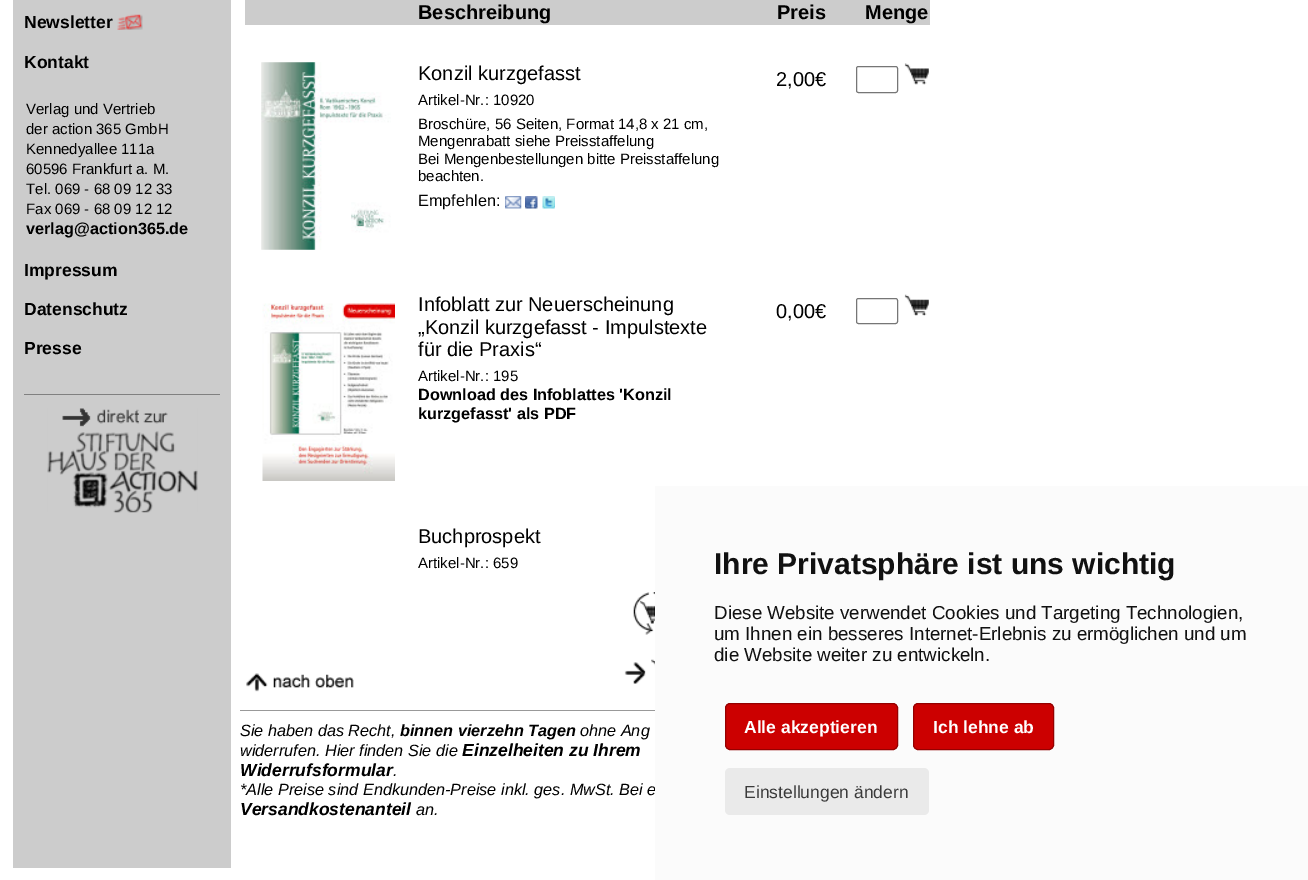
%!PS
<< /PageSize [1308 880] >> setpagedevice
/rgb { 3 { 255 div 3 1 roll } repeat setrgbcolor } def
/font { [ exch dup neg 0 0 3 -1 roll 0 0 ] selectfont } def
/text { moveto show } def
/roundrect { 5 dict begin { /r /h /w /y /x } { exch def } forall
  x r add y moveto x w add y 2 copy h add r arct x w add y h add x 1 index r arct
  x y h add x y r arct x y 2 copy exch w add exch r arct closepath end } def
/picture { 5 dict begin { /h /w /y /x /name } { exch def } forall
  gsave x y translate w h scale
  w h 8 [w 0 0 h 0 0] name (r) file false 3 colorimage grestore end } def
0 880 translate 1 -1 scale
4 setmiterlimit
255 255 255 rgb
0 0 1308 880 rectfill
204 204 204 rgb
13 0 218 868 rectfill
(img_01.rgb) 117 14 26 16 picture
128 128 128 rgb
24 394 196 1 rectfill
(img_02.rgb) 47 408 151 105 picture
204 204 204 rgb
245 0 685 25 rectfill
(img_03.rgb) 261 62 130 188 picture
(img_04.rgb) 505 196 17 13 picture
(img_05.rgb) 525 196 13 13 picture
(img_06.rgb) 542 196 13 13 picture
118 118 118 rgb
856.5 66.5 41 26 2 roundrect stroke
(img_07.rgb) 904 63 25 22 picture
(img_08.rgb) 262 303 133 178 picture
856.5 298.5 41 25 2 roundrect stroke
(img_09.rgb) 904 294 25 22 picture
(img_10.rgb) 633 588 22 47 picture
(img_11.rgb) 246 673 108 19 picture
(img_12.rgb) 624 659 31 25 picture
153 153 153 rgb
240 710 415 1 rectfill
/LiberationSans-Bold 17.5 font
0 0 0 rgb
(Newsletter) 24 28 text
(Kontakt) 24 68 text
/LiberationSans-Regular 15 font
(Verlag und Vertrieb) 26 114 text
(der action 365 GmbH) 26 134 text
(Kennedyallee 111a) 26 154 text
(60596 Frankfurt a. M.) 26 174 text
(Tel. 069 - 68 09 12 33) 26 194 text
(Fax 069 - 68 09 12 12) 26 214 text
/LiberationSans-Bold 16.25 font
(verlag@action365.de) 26 234 text
/LiberationSans-Bold 17.5 font
(Impressum) 24 276 text
(Datenschutz) 24 315 text
(Presse) 24 354 text
/LiberationSans-Bold 20 font
(Beschreibung) 418 19 text
(Preis) 777 19 text
(Menge) 865 19 text
/LiberationSans-Regular 20 font
(Konzil kurzgefasst) 418 80 text
/LiberationSans-Regular 15 font
(Artikel-Nr.: 10920) 418 105 text
(Broschüre, 56 Seiten, Format 14,8 x 21 cm,) 418 129 text
(Mengenrabatt siehe Preisstaffelung) 418 146 text
(Bei Mengenbestellungen bitte Preisstaffelung) 418 164 text
(beachten.) 418 181 text
/LiberationSans-Regular 16.25 font
(Empfehlen:) 418 206 text
/LiberationSans-Regular 20 font
(2,00€) 776 86 text
(Infoblatt zur Neuerscheinung) 418 311 text
(„Konzil kurzgefasst - Impulstexte) 418 334 text
(für die Praxis“) 418 356 text
/LiberationSans-Regular 15 font
(Artikel-Nr.: 195) 418 381 text
/LiberationSans-Bold 16.25 font
(Download des Infoblattes 'Konzil) 418 400 text
(kurzgefasst' als PDF) 418 419 text
/LiberationSans-Regular 20 font
(0,00€) 776 318 text
(Buchprospekt) 418 543 text
/LiberationSans-Regular 15 font
(Artikel-Nr.: 659) 418 568 text
/LiberationSans-Italic 16.25 font
(Sie haben das Recht,) 240 736 text
/LiberationSans-BoldItalic 16.25 font
(binnen vierzehn Tagen) 400 736 text
/LiberationSans-Italic 16.25 font
(ohne Ang) 580 736 text
(widerrufen. Hier finden Sie die) 240 756 text
/LiberationSans-BoldItalic 17.5 font
(Einzelheiten zu Ihrem) 462 756 text
(Widerrufsformular) 240 776 text
/LiberationSans-Italic 16.25 font
(.) 393 776 text
(*Alle Preise sind Endkunden-Preise inkl. ges. MwSt. Bei e) 240 795 text
/LiberationSans-BoldItalic 17.5 font
(Versandkostenanteil) 240 815 text
/LiberationSans-Italic 16.25 font
(an.) 416 815 text
251 251 251 rgb
655 486 653 394 rectfill
/LiberationSans-Bold 30 font
17 17 17 rgb
(Ihre Privatsphäre ist uns wichtig) 714 574 text
/LiberationSans-Regular 18.75 font
(Diese Website verwendet Cookies und Targeting Technologien,) 714 619 text
(um Ihnen ein besseres Internet-Erlebnis zu ermöglichen und um) 714 640 text
(die Website weiter zu entwickeln.) 714 661 text
204 0 0 rgb
725.5 703.5 172 46 4.5 roundrect gsave fill grestore
149 0 0 rgb
stroke
/LiberationSans-Bold 17.5 font
255 255 255 rgb
(Alle akzeptieren) 744 733 text
204 0 0 rgb
913.5 703.5 140 46 4.5 roundrect gsave fill grestore
149 0 0 rgb
stroke
255 255 255 rgb
(Ich lehne ab) 933 733 text
234 234 234 rgb
725 768 204 47 5 roundrect fill
/LiberationSans-Regular 17.5 font
58 58 58 rgb
(Einstellungen ändern) 744 798 text
showpage
